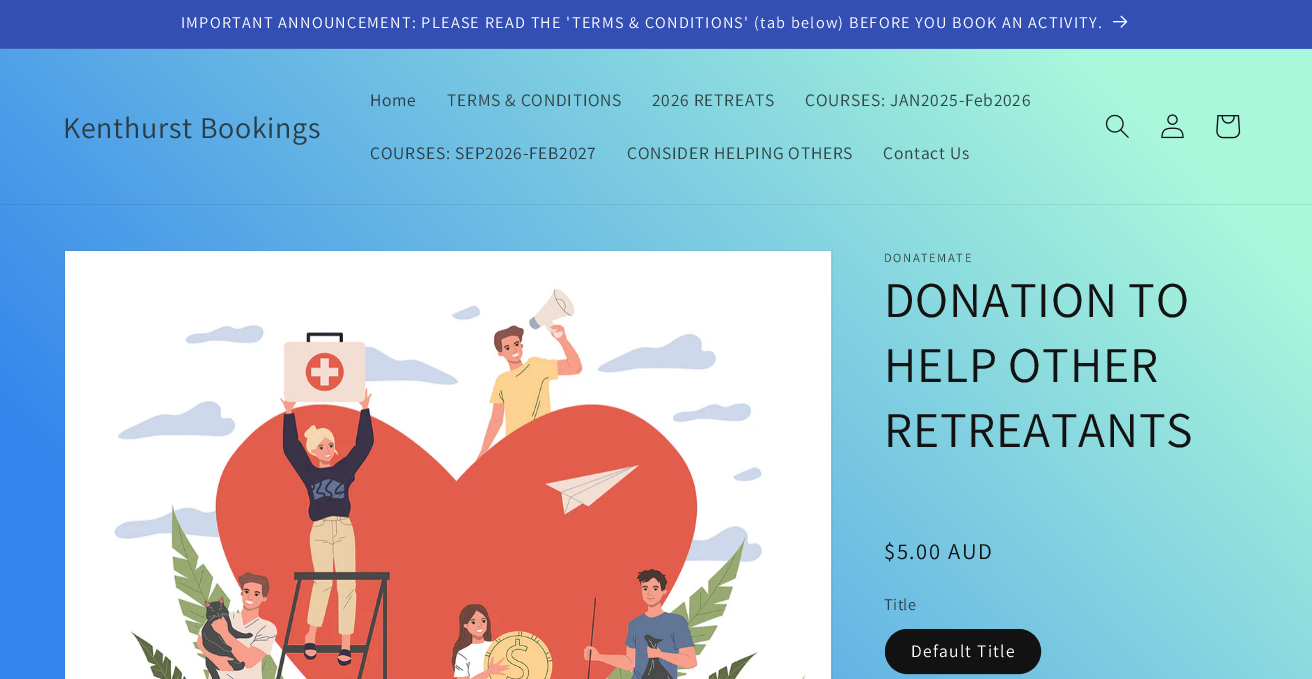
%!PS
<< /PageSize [1312 679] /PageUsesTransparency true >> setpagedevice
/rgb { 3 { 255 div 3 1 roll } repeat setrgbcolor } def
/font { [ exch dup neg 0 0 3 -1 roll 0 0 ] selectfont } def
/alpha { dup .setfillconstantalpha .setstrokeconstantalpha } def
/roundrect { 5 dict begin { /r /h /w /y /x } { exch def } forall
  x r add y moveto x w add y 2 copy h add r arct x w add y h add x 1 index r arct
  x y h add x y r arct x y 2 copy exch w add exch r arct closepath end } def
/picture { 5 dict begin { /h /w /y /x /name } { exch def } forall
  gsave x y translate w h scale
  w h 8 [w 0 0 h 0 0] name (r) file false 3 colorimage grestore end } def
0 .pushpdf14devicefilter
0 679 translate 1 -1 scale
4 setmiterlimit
255 255 255 rgb
0 0 1312 679 rectfill
gsave 0 49 moveto 1312 0 rlineto 0 630 rlineto -1312 0 rlineto closepath clip newpath
<< /ShadingType 2 /ColorSpace /DeviceRGB /Coords [147 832 1166 -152] /Extend [true true] /Function << /FunctionType 3 /Domain [0 1] /Functions [<< /FunctionType 2 /Domain [0 1] /C0 [0.204 0.522 0.925] /C1 [0.204 0.522 0.925] /N 1 >> << /FunctionType 2 /Domain [0 1] /C0 [0.204 0.522 0.925] /C1 [0.667 0.973 0.859] /N 1 >> << /FunctionType 2 /Domain [0 1] /C0 [0.667 0.973 0.859] /C1 [0.667 0.973 0.859] /N 1 >>] /Bounds [0.13 0.86] /Encode [0 1 0 1 0 1] >> >> shfill grestore
gsave 0 204 moveto 1312 0 rlineto 0 1 rlineto -1312 0 rlineto closepath clip newpath
<< /ShadingType 2 /ColorSpace /DeviceRGB /Coords [147 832 1166 -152] /Extend [true true] /Function << /FunctionType 3 /Domain [0 1] /Functions [<< /FunctionType 2 /Domain [0 1] /C0 [0.192 0.486 0.859] /C1 [0.192 0.486 0.859] /N 1 >> << /FunctionType 2 /Domain [0 1] /C0 [0.192 0.486 0.859] /C1 [0.62 0.902 0.796] /N 1 >> << /FunctionType 2 /Domain [0 1] /C0 [0.62 0.902 0.796] /C1 [0.62 0.902 0.796] /N 1 >>] /Bounds [0.13 0.86] /Encode [0 1 0 1 0 1] >> >> shfill grestore
51 79 180 rgb
0 0 1312 48 rectfill
67 93 186 rgb
0 48 1312 1 rectfill
(img_01.rgb) 1113 15 15 13 picture
(img_02.rgb) 1105 114 24 24 picture
(img_03.rgb) 1161 114 23 25 picture
(img_04.rgb) 1216 115 25 24 picture
0.05 alpha
18 18 18 rgb
64.5 250.5 768 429 rectstroke
1 alpha
(img_05.rgb) 65 251 766 428 picture
885 629 156 45 22.5 roundrect fill
0.55 alpha
885.5 629.5 155 44 22 roundrect stroke
/Assistant-Regular 16.25 font
1 alpha
255 255 255 rgb
181 28 moveto 1.25 0 (IMPORTANT ANNOUNCEMENT: PLEASE READ THE 'TERMS & CONDITIONS' \(tab below\) BEFORE YOU BOOK AN ACTIVITY.) ashow
/Assistant-Regular 30 font
41 61 70 rgb
63 138 moveto 0.75 0 (Kenthurst Bookings) ashow
/Assistant-Regular 17.5 font
370 106 moveto 0.75 0 (Home) ashow
49 68 69 rgb
447 106 moveto 0.75 0 (TERMS & CONDITIONS) ashow
652 106 moveto 0.75 0 (2026 RETREATS) ashow
805 106 moveto 0.75 0 (COURSES: JAN2025-Feb2026) ashow
41 61 70 rgb
370 159 moveto 0.75 0 (COURSES: SEP2026-FEB2027) ashow
49 68 69 rgb
627 159 moveto 0.75 0 (CONSIDER HELPING OTHERS) ashow
883 159 moveto 0.75 0 (Contact Us) ashow
/Assistant-Regular 12.5 font
884 262 moveto 1.6 0 (DONATEMATE) ashow
/Assistant-Regular 50 font
18 18 18 rgb
884 317 moveto 0.75 0 (DONATION TO) ashow
884 382 moveto 0.75 0 (HELP OTHER) ashow
884 447 moveto 0.75 0 (RETREATANTS) ashow
/Assistant-Regular 22.5 font
884 559 moveto 1.6 0 ($5.00 AUD) ashow
/Assistant-Regular 16.25 font
41 61 70 rgb
884 610 moveto 0.5 0 (Title) ashow
/Assistant-Regular 17.5 font
255 255 255 rgb
911 657 moveto 1.25 0 (Default Title) ashow
.poppdf14devicefilter showpage
